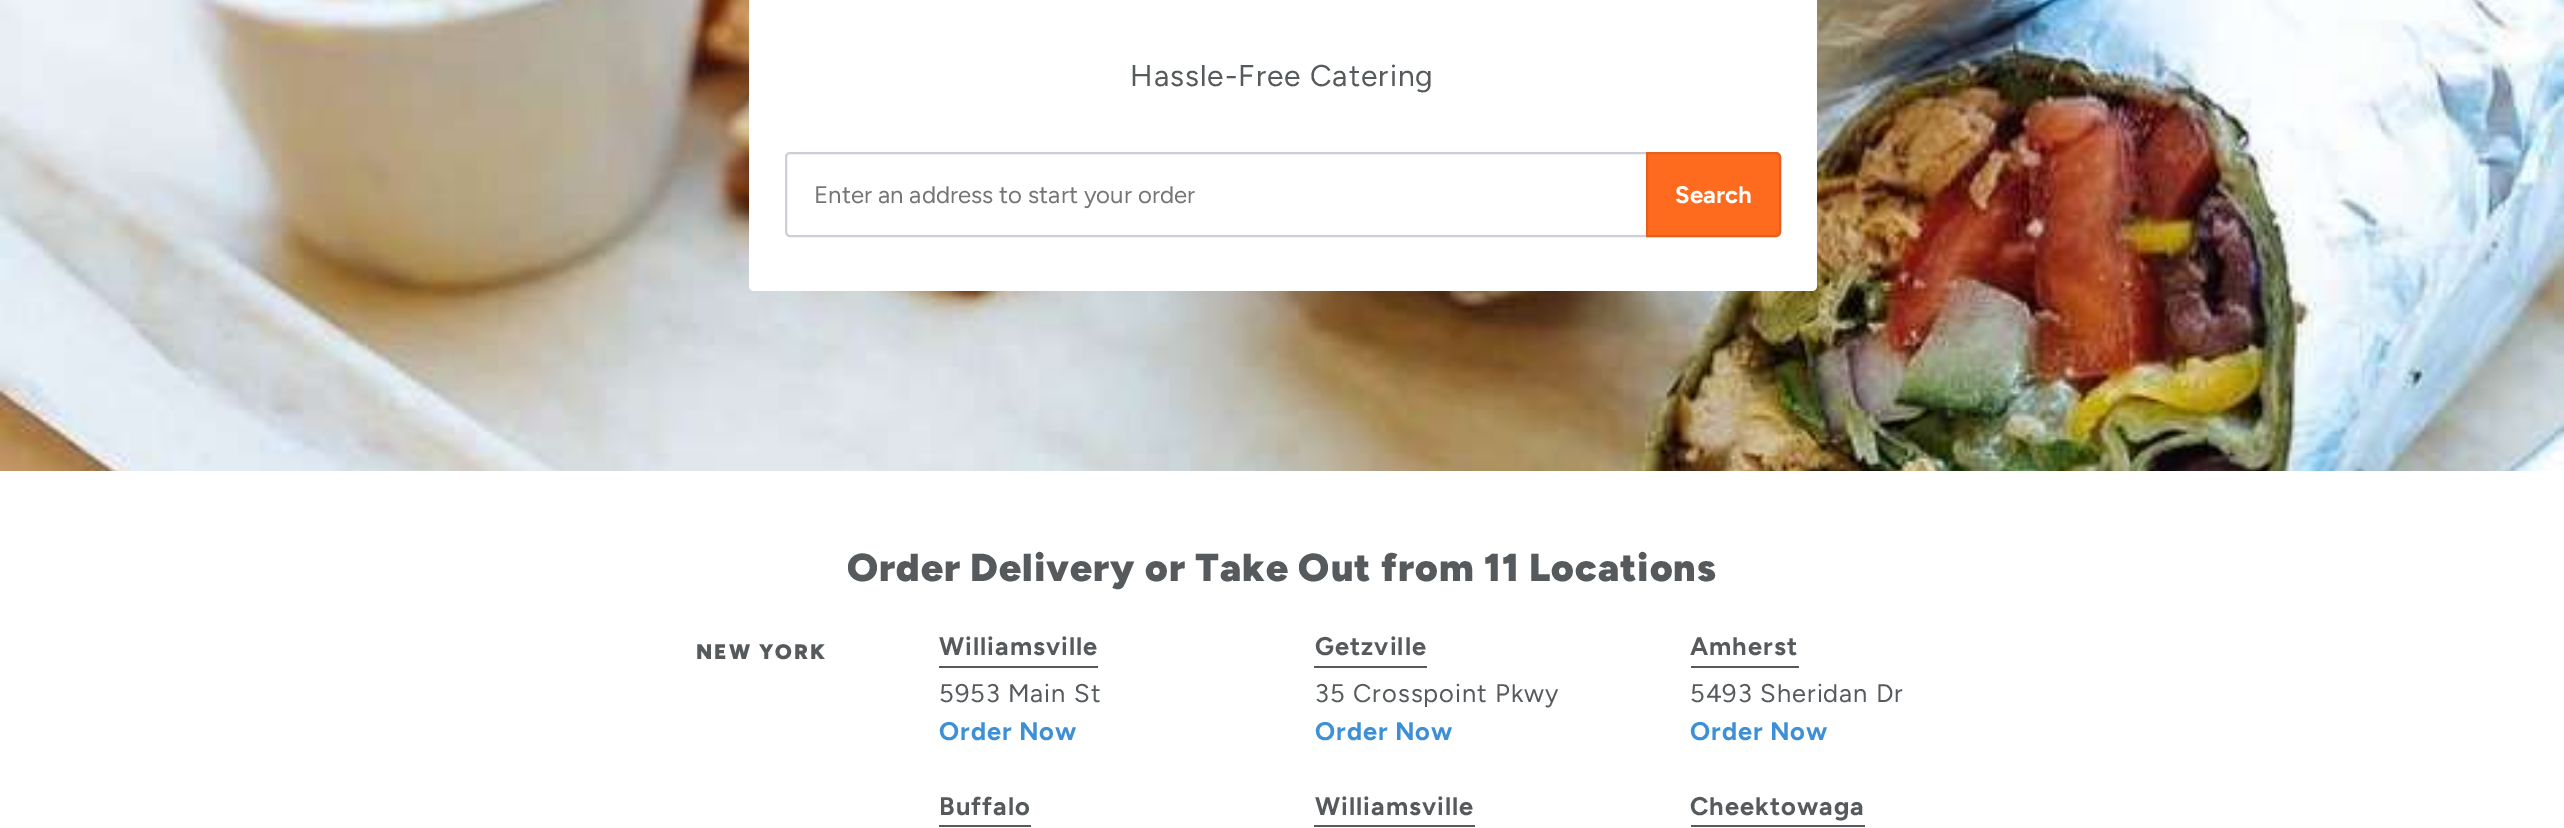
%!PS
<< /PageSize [2564 828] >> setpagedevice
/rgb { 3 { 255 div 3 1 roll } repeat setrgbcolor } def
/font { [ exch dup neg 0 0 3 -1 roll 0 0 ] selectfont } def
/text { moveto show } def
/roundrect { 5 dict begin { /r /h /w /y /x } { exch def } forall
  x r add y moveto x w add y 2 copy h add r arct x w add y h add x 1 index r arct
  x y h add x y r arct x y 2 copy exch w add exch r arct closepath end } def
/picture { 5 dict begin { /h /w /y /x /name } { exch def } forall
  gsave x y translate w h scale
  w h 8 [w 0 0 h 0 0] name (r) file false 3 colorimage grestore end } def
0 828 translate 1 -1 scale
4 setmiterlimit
255 255 255 rgb
0 0 2564 828 rectfill
(img_01.rgb) 0 0 2564 471 picture
749 -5 1068 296 5 roundrect fill
204 207 213 rgb
2 setlinewidth
786 153 994 83 4 roundrect stroke
255 107 30 rgb
1647 153 moveto 129 0 rlineto 2 0 4 2 4 4 rcurveto 0 75 rlineto 0 2 -2 4 -4 4 rcurveto -129 0 rlineto closepath gsave fill grestore
230 96 27 rgb
stroke
86 90 92 rgb
939 666 159 2 rectfill
1314 666 113 2 rectfill
1691 666 108 2 rectfill
939 825 92 2 rectfill
1314 825 161 2 rectfill
1691 825 174 2 rectfill
/Figtree-Regular 30 font
1130 86 moveto 1 0 (Hassle-Free Catering) ashow
/Figtree-Regular 24 font
117 117 117 rgb
(Enter an address to start your order) 814 203 text
/Figtree-Bold 24 font
255 255 255 rgb
(Search) 1675 203 text
/Figtree-Black 39 font
86 90 92 rgb
847 581 moveto -0.75 0 32 1 0 (Order Delivery or Take Out from 11 Locations) awidthshow
/Figtree-Black 21 font
696 659 moveto 2 0 (NEW YORK) ashow
/Figtree-Bold 25.5 font
939 655 moveto 1 0 (Williamsville) ashow
/Figtree-Regular 25.5 font
939 702 moveto 1 0 (5953 Main St) ashow
/Figtree-Bold 25.5 font
62 144 214 rgb
939 740 moveto -1 0 32 1 0 (Order Now) awidthshow
86 90 92 rgb
1315 655 moveto 1 0 (Getzville) ashow
/Figtree-Regular 25.5 font
1315 702 moveto 1 0 (35 Crosspoint Pkwy) ashow
/Figtree-Bold 25.5 font
62 144 214 rgb
1315 740 moveto -1 0 32 1 0 (Order Now) awidthshow
86 90 92 rgb
1690 655 moveto 1 0 (Amherst) ashow
/Figtree-Regular 25.5 font
1690 702 moveto 1 0 (5493 Sheridan Dr) ashow
/Figtree-Bold 25.5 font
62 144 214 rgb
1690 740 moveto -1 0 32 1 0 (Order Now) awidthshow
86 90 92 rgb
939 815 moveto 1 0 (Buffalo) ashow
1315 815 moveto 1 0 (Williamsville) ashow
1690 815 moveto 1 0 (Cheektowaga) ashow
showpage
